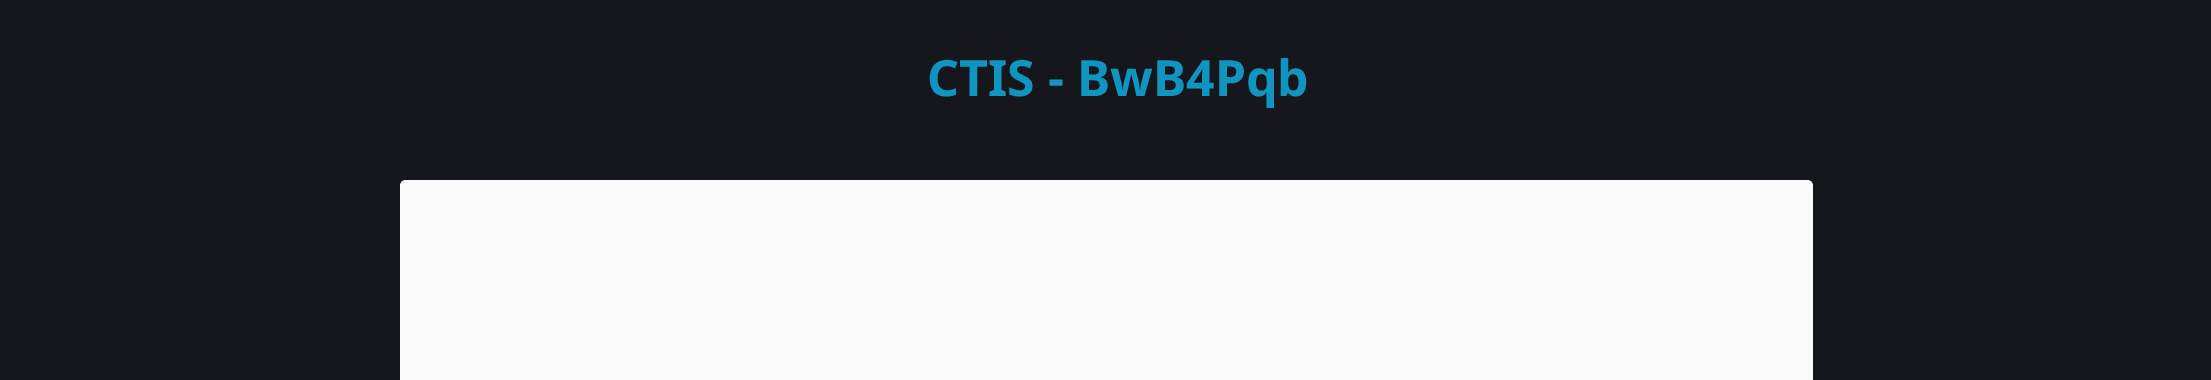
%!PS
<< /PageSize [2211 380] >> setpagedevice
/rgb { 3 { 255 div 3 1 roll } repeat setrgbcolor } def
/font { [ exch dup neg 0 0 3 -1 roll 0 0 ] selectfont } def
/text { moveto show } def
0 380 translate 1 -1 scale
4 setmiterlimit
22 22 29 rgb
0 0 2211 380 rectfill
251 251 252 rgb
406 180 moveto 1401 0 rlineto 3.5 0 6 2.5 6 6 rcurveto 0 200 rlineto -1413 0 rlineto 0 -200 rlineto 0 -3.5 2.5 -6 6 -6 rcurveto closepath fill
/NotoSans-Bold 50 font
16 149 193 rgb
(CTIS - BwB4Pqb) 927 96 text
showpage
